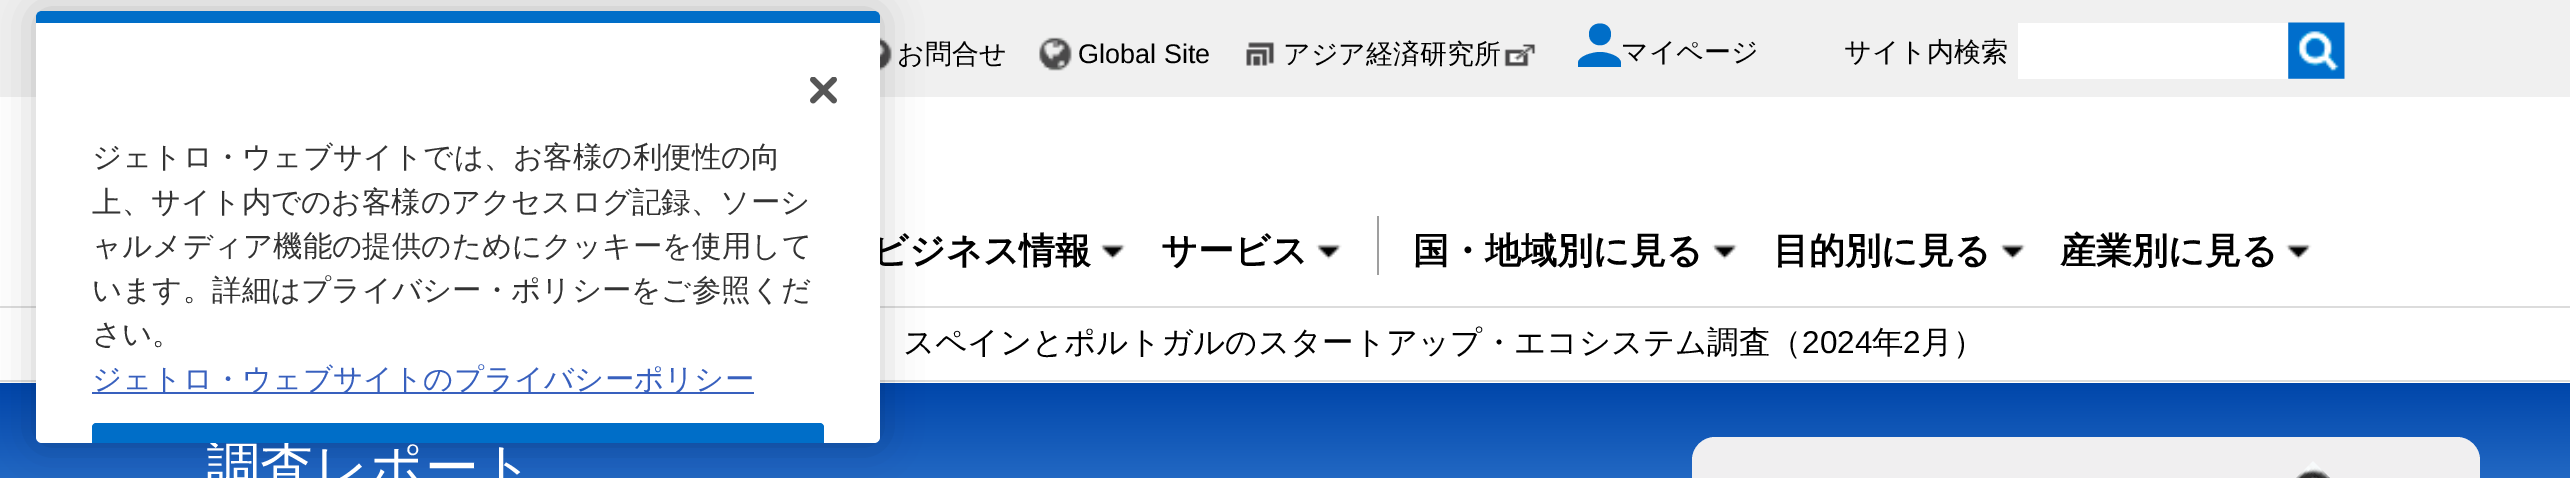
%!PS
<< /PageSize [2570 478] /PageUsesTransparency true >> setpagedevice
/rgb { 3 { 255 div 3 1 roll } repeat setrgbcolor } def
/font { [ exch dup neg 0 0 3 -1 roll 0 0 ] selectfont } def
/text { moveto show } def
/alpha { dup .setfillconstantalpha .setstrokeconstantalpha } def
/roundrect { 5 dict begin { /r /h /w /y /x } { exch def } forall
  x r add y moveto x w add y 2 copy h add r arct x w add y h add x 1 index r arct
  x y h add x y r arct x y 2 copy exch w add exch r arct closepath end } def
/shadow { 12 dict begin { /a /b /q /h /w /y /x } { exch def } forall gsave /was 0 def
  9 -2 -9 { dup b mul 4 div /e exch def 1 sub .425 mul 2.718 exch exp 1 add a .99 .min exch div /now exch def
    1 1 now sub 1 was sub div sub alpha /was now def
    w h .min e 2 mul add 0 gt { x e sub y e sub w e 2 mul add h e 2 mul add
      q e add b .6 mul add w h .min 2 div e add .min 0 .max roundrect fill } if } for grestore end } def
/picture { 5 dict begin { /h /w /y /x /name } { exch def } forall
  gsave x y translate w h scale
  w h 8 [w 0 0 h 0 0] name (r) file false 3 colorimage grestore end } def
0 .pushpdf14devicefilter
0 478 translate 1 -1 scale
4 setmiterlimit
255 255 255 rgb
0 0 2570 478 rectfill
240 240 240 rgb
0 0 2570 97 rectfill
(img_01.rgb) 880 37 12 34 picture
(img_02.rgb) 1039 37 33 34 picture
(img_03.rgb) 1246 42 29 24 picture
(img_04.rgb) 1504 44 32 23 picture
0 110 200 rgb
1611 34 moveto 0 15 -22 15 -22 0 rcurveto 0 -14 22 -14 22 0 rcurveto closepath 1578 63 moveto 0 -7 15 -11 22 -11 rcurveto 7 0 21 4 21 11 rcurveto 0 4 rlineto -43 0 rlineto closepath fill
255 255 255 rgb
2018 23 270 56 rectfill
(img_05.rgb) 2288 22 57 57 picture
(img_06.rgb) 1100 244 26 16 picture
159 159 159 rgb
1377 216 2 59 rectfill
(img_07.rgb) 1316 244 26 16 picture
(img_07.rgb) 1712 244 26 16 picture
(img_06.rgb) 2000 244 26 16 picture
(img_08.rgb) 2285 244 27 16 picture
220 220 220 rgb
0 306 2570 2 rectfill
0 380 2570 2 rectfill
gsave 0 383 moveto 2570 0 rlineto 0 95 rlineto -2570 0 rlineto closepath clip newpath
<< /ShadingType 2 /ColorSpace /DeviceRGB /Coords [1286 382 1286 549] /Extend [true true] /Function << /FunctionType 2 /Domain [0 1] /C0 [0 0.275 0.667] /C1 [0.231 0.506 0.839] /N 1 >> >> shfill grestore
240 239 240 rgb
1715 437 moveto 742 0 rlineto 12.5 0 23 10.5 23 23 rcurveto 0 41 rlineto -788 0 rlineto 0 -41 rlineto 0 -12.5 10.5 -23 23 -23 rcurveto closepath fill
(img_09.rgb) 2296 461 34 17 picture
0 0 0 rgb
36 11 844 432 6 20 0.2 shadow
/WenQuanYiZenHei-Medium 27 font
(お問合せ) 897 63 text
/LiberationSans-Regular 27 font
(Global Site) 1078 63 text
/WenQuanYiZenHei-Medium 27 font
(アジア経済研究所) 1283 63 text
(マイページ) 1621 61 text
(サイト内検索) 1844 61 text
/WenQuanYiZenHei-Bold 36 font
(ビジネス情報) 872 263 text
(サービス) 1161 263 text
(国・地域別に見る) 1413 263 text
(目的別に見る) 1773 263 text
(産業別に見る) 2060 263 text
/WenQuanYiZenHei-Medium 31.5 font
(スペインとポルトガルのスタートアップ・エコシステム調査（) 903 353 text
/LiberationSans-Regular 31.5 font
(2024) 1802 353 text
/WenQuanYiZenHei-Medium 31.5 font
(年) 1872 353 text
/LiberationSans-Regular 31.5 font
(2) 1903 353 text
/WenQuanYiZenHei-Medium 31.5 font
(月）) 1921 353 text
/WenQuanYiZenHei-Medium 54 font
255 255 255 rgb
(調査レポート) 206 486 text
36 11 844 432 6 roundrect fill
0 110 200 rgb
42 11 moveto 832 0 rlineto 3.5 0 6 2.5 6 6 rcurveto 0 6 rlineto -844 0 rlineto 0 -6 rlineto 0 -3.5 2.5 -6 6 -6 rcurveto closepath fill
(img_10.rgb) 810 77 27 27 picture
/WenQuanYiZenHei-Medium 29.5 font
51 51 51 rgb
(ジェトロ・ウェブサイトでは、お客様の利便性の向) 92 167 text
(上、サイト内でのお客様のアクセスログ記録、ソーシ) 92 212 text
(ャルメディア機能の提供のためにクッキーを使用して) 92 256 text
(います。詳細はプライバシー・ポリシーをご参照くだ) 92 300 text
(さい。) 92 344 text
56 96 190 rgb
92 392 662 2 rectfill
(ジェトロ・ウェブサイトのプライバシーポリシー) 92 389 text
0 110 200 rgb
97 423 moveto 722 0 rlineto 3 0 5 2 5 5 rcurveto 0 15 rlineto -732 0 rlineto 0 -15 rlineto 0 -3 2 -5 5 -5 rcurveto closepath fill
97 423 moveto -3 0 -5 2 -5 5 rcurveto 0 15 rlineto 2 0 rlineto 0 -15 rlineto 0 -2 1 -3 3 -3 rcurveto 722 0 rlineto 2 0 3 1 3 3 rcurveto 0 15 rlineto 2 0 rlineto 0 -15 rlineto 0 -3 -2 -5 -5 -5 rcurveto closepath fill
.poppdf14devicefilter showpage
